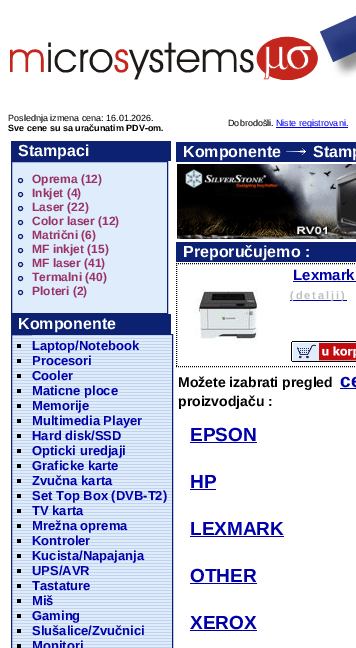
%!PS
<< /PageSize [356 648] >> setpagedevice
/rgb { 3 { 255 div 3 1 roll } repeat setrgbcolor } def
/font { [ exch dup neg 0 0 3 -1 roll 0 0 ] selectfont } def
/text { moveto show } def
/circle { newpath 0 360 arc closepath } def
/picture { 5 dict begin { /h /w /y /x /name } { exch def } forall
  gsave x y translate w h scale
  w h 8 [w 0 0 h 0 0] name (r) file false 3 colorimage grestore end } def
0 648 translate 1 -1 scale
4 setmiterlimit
255 255 255 rgb
0 0 356 648 rectfill
(img_01.rgb) 10 36 308 44 picture
(img_02.rgb) 320 15 36 63 picture
0 0 238 rgb
276 127 72 1 rectfill
12 33 114 rgb
11 141 160 20 rectfill
223 236 251 rgb
11.5 161.5 moveto 156 0 rlineto 0 152 rlineto -156 0 rlineto closepath gsave fill grestore
12 33 114 rgb
stroke
20.5 180.5 2 circle stroke
20.5 194.5 2 circle stroke
20.5 208.5 2 circle stroke
20.5 222.5 2 circle stroke
20.5 236.5 2 circle stroke
20.5 250.5 2 circle stroke
20.5 264.5 2 circle stroke
20.5 278.5 2 circle stroke
20.5 292.5 2 circle stroke
11 314 160 20 rectfill
(img_03.rgb) 12 335 20 313 picture
11.5 334.5 161 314 rectstroke
(img_04.rgb) 32 335 140 313 picture
0 0 0 rgb
17 344 4 4 rectfill
17 359 4 4 rectfill
17 374 4 4 rectfill
17 389 4 4 rectfill
17 404 4 4 rectfill
17 419 4 4 rectfill
17 434 4 4 rectfill
17 449 4 4 rectfill
17 464 4 4 rectfill
17 479 4 4 rectfill
17 494 4 4 rectfill
17 509 4 4 rectfill
17 524 4 4 rectfill
17 539 4 4 rectfill
17 554 4 4 rectfill
17 569 4 4 rectfill
17 584 4 4 rectfill
17 599 4 4 rectfill
17 614 4 4 rectfill
17 629 4 4 rectfill
17 644 4 4 rectfill
12 33 114 rgb
176 142 180 20 rectfill
(img_05.rgb) 286 148 20 7 picture
(img_06.rgb) 177 164 179 75 picture
176 242 180 20 rectfill
0 0 0 rgb
[1 1] 0 setdash
176 263.5 moveto 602 0 rlineto stroke
176 366.5 moveto 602 0 rlineto stroke
176.5 263 moveto 0 104 rlineto stroke
0 0 170 rgb
293 281 63 1 rectfill
290 300 57 1 rectfill
(img_07.rgb) 291 341 65 21 picture
(img_08.rgb) 194 289 64 56 picture
340 388 16 1 rectfill
190 442 67 1 rectfill
190 489 26 1 rectfill
190 536 94 1 rectfill
190 583 67 1 rectfill
190 630 67 1 rectfill
/LiberationSans-Regular 9 font
0 0 0 rgb
(Poslednja izmena cena: 16.01.2026.) 8 121 text
/LiberationSans-Bold 9 font
(Sve cene su sa uračunatim PDV-om.) 8 131 text
/LiberationSans-Regular 9 font
(Dobrodošli.) 228 126 text
0 0 238 rgb
(Niste registrovani.) 276 126 text
/LiberationSans-Bold 16 font
255 255 255 rgb
(Stampaci) 18 156 text
/LiberationSans-Bold 12 font
153 51 102 rgb
(Oprema \(12\)) 32 183 text
(Inkjet \(4\)) 32 197 text
(Laser \(22\)) 32 211 text
(Color laser \(12\)) 32 225 text
(Matrični \(6\)) 32 239 text
(MF inkjet \(15\)) 32 253 text
(MF laser \(41\)) 32 267 text
(Termalni \(40\)) 32 281 text
(Ploteri \(2\)) 32 295 text
/LiberationSans-Bold 16 font
255 255 255 rgb
(Komponente) 18 329 text
/LiberationSans-Bold 13 font
0 0 170 rgb
(Laptop/Notebook) 32 350 text
(Procesori) 32 365 text
(Cooler) 32 380 text
(Maticne ploce) 32 395 text
(Memorije) 32 410 text
(Multimedia Player) 32 425 text
(Hard disk/SSD) 32 440 text
(Opticki uredjaji) 32 455 text
(Graficke karte) 32 470 text
(Zvučna karta) 32 485 text
(Set Top Box \(DVB-T2\)) 32 500 text
(TV karta) 32 515 text
(Mrežna oprema) 32 530 text
(Kontroler) 32 545 text
(Kucista/Napajanja) 32 560 text
(UPS/AVR) 32 575 text
(Tastature) 32 590 text
(Miš) 32 605 text
(Gaming) 32 620 text
(Slušalice/Zvučnici) 32 635 text
(Monitori) 32 650 text
/LiberationSans-Bold 16 font
255 255 255 rgb
(Komponente) 183 157 text
(Stamp) 313 157 text
(Preporučujemo :) 183 257 text
/LiberationSans-Bold 15 font
0 0 170 rgb
(Lexmark) 293 280 text
/LiberationSans-Bold 11 font
192 192 192 rgb
290 299 moveto 2 0 (\(detalji\)) ashow
/LiberationSans-Bold 14 font
0 0 0 rgb
(Možete izabrati pregled) 178 387 text
/LiberationSans-Bold 19 font
0 0 170 rgb
(ce) 340 387 text
/LiberationSans-Bold 14 font
0 0 0 rgb
(proizvodjaču :) 178 406 text
/LiberationSans-Bold 19 font
0 0 170 rgb
(EPSON) 190 441 text
(HP) 190 488 text
(LEXMARK) 190 535 text
(OTHER) 190 582 text
(XEROX) 190 629 text
showpage
